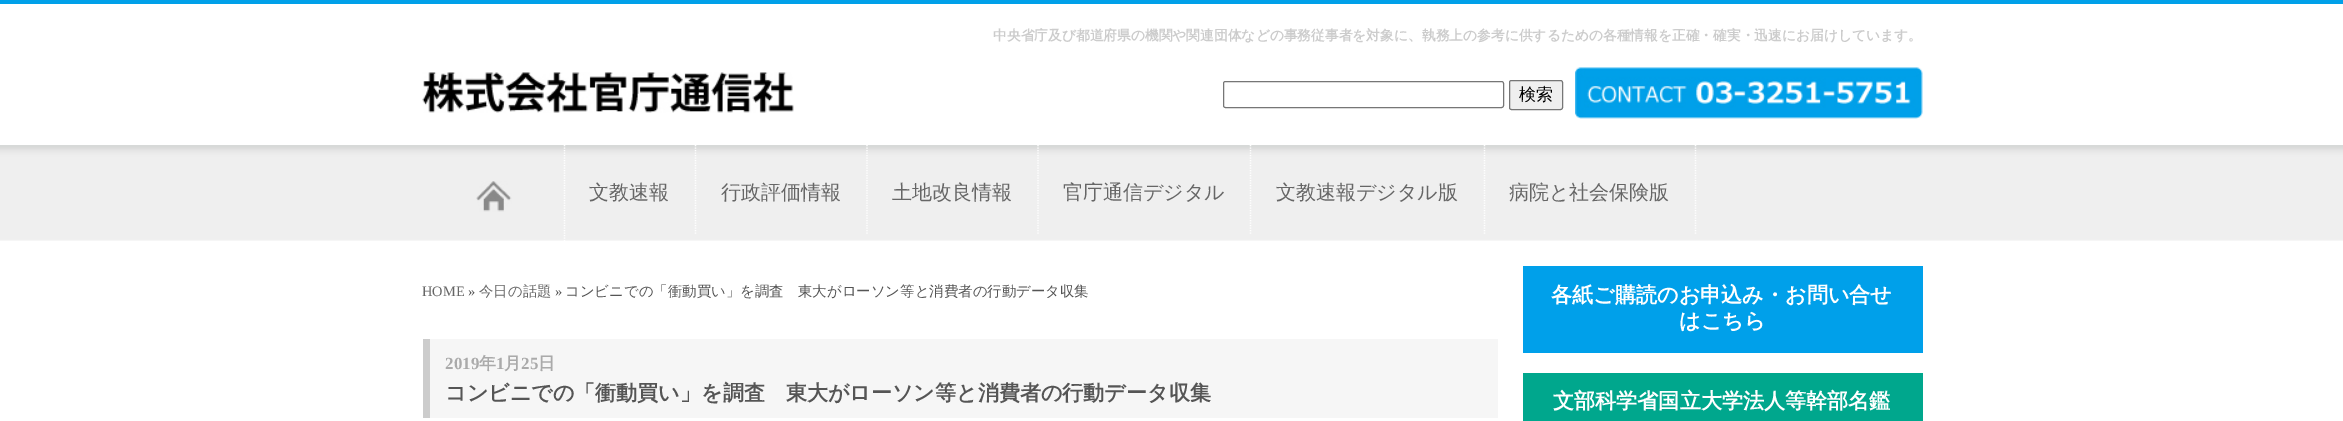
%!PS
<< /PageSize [2343 421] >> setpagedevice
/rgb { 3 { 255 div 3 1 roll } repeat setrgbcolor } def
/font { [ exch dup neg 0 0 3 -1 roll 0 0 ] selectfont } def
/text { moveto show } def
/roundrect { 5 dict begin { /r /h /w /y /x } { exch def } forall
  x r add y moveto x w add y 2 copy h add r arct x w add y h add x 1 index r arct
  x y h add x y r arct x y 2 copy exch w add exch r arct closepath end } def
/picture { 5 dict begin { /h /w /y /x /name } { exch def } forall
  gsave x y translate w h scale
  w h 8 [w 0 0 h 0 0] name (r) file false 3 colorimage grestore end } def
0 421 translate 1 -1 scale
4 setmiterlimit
255 255 255 rgb
0 0 2343 421 rectfill
0 160 233 rgb
0 0 2343 4 rectfill
(img_01.rgb) 422 72 372 41 picture
118 118 118 rgb
1223.5 81.5 280 26 2 roundrect stroke
239 239 239 rgb
1509.5 80.5 53 29 2 roundrect gsave fill grestore
118 118 118 rgb
stroke
(img_02.rgb) 1575 67 348 52 picture
(img_03.rgb) 0 145 2343 96 picture
gsave
423 145 1500 96 rectclip
255 255 255 rgb
1.2 setlinewidth
[1.25 1.25] 0 setdash
564.5 145 moveto 0 99 rlineto stroke
grestore
(img_04.rgb) 476 181 36 31 picture
255 255 255 rgb
1.2 setlinewidth
[1.25 1.25] 0 setdash
695.5 145 moveto 0 89 rlineto stroke
867 145 moveto 0 89 rlineto stroke
1038 145 moveto 0 89 rlineto stroke
1250.5 145 moveto 0 89 rlineto stroke
1484.5 145 moveto 0 89 rlineto stroke
1695.5 145 moveto 0 89 rlineto stroke
246 246 246 rgb
430 339 1068 79 rectfill
204 204 204 rgb
423 339 7 79 rectfill
0 160 234 rgb
1523 266 400 87 rectfill
0 167 141 rgb
1523 373 400 48 rectfill
/WenQuanYiZenHei-Bold 13.75 font
204 204 204 rgb
(中央省庁及び都道府県の機関や関連団体などの事務従事者を対象に、執務上の参考に供するための各種情報を正確・確実・迅速にお届けしています。) 993 40 text
/WenQuanYiZenHei-Medium 17 font
0 0 0 rgb
(検索) 1519 100 text
/WenQuanYiZenHei-Medium 20 font
102 102 102 rgb
(文教速報) 589 199 text
(行政評価情報) 721 199 text
(土地改良情報) 892 199 text
(官庁通信デジタル) 1063 199 text
(文教速報デジタル版) 1276 199 text
(病院と社会保険版) 1509 199 text
/LiberationSerif-Regular 14.4 font
(HOME) 422 296 text
85 85 85 rgb
(») 468 296 text
/WenQuanYiZenHei-Medium 14.4 font
102 102 102 rgb
(今日の話題) 479 296 text
/LiberationSerif-Regular 14.4 font
85 85 85 rgb
(») 555 296 text
/WenQuanYiZenHei-Medium 14.4 font
(コンビニでの「衝動買い」を調査　東大がローソン等と消費者の行動データ収集) 565 296 text
/LiberationSerif-Bold 17 font
170 170 170 rgb
(2019) 445 369 text
/WenQuanYiZenHei-Bold 17 font
(年) 479 369 text
/LiberationSerif-Bold 17 font
(1) 496 369 text
/WenQuanYiZenHei-Bold 17 font
(月) 504 369 text
/LiberationSerif-Bold 17 font
(25) 521 369 text
/WenQuanYiZenHei-Bold 17 font
(日) 538 369 text
/WenQuanYiZenHei-Bold 21.05 font
85 85 85 rgb
(コンビニでの「衝動買い」を調査　東大がローソン等と消費者の行動データ収集) 445 400 text
/WenQuanYiZenHei-Bold 21.1 font
255 255 255 rgb
(各紙ご購読のお申込み・お問い合せ) 1551 302 text
(はこちら) 1679 328 text
(文部科学省国立大学法人等幹部名鑑) 1553 408 text
showpage
